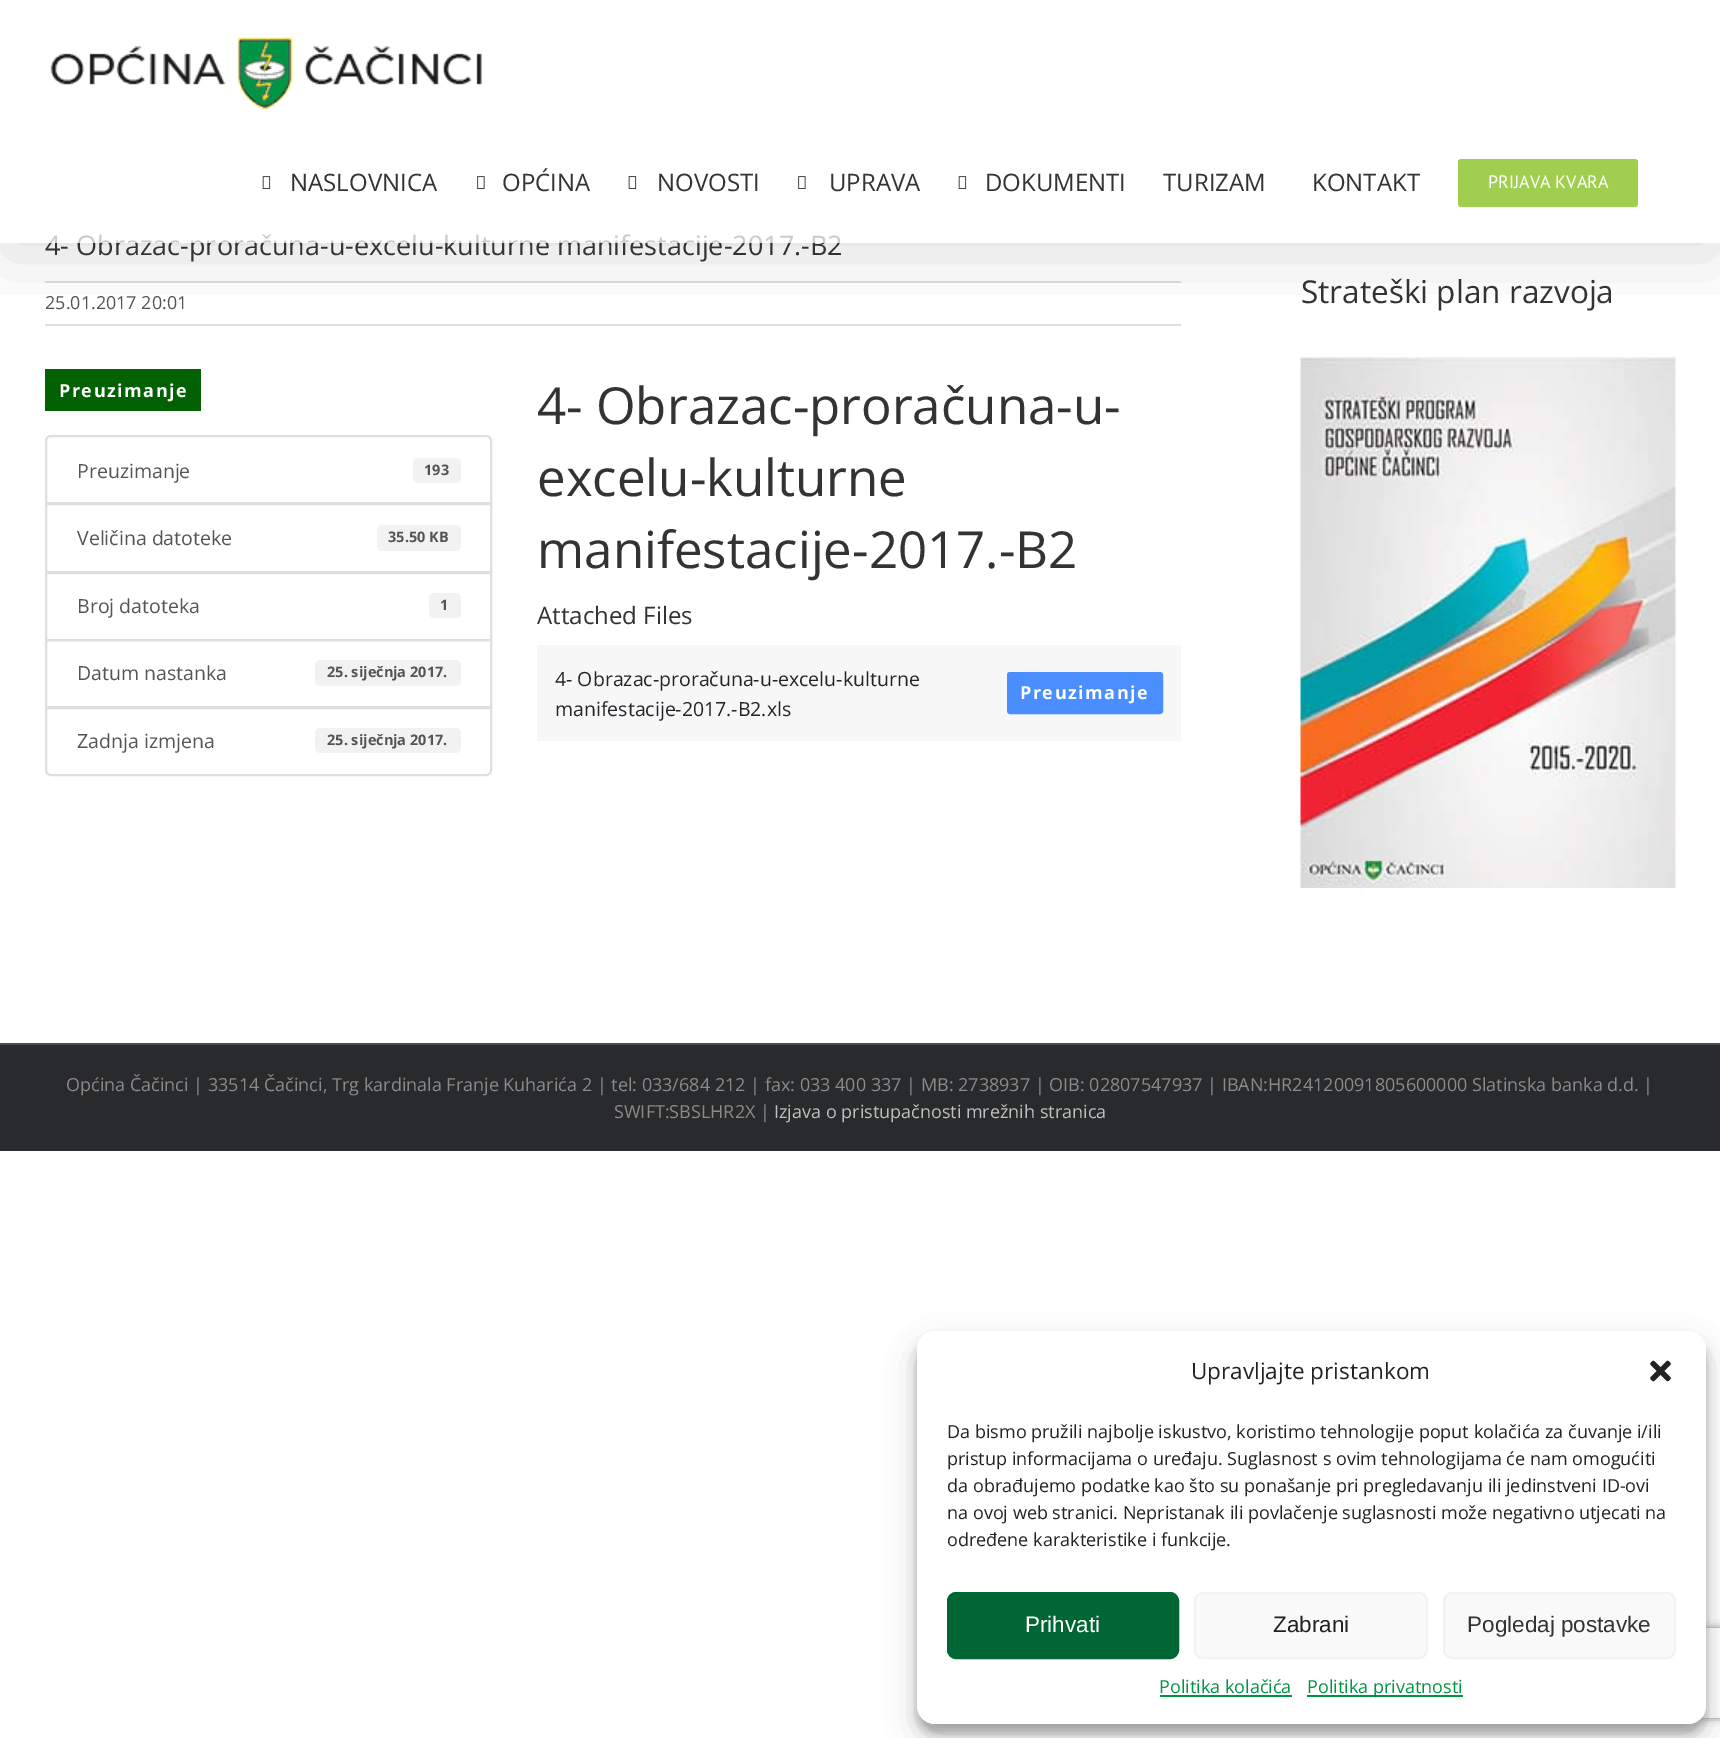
%!PS
<< /PageSize [1720 1738] /PageUsesTransparency true >> setpagedevice
/rgb { 3 { 255 div 3 1 roll } repeat setrgbcolor } def
/font { [ exch dup neg 0 0 3 -1 roll 0 0 ] selectfont } def
/text { moveto show } def
/alpha { dup .setfillconstantalpha .setstrokeconstantalpha } def
/roundrect { 5 dict begin { /r /h /w /y /x } { exch def } forall
  x r add y moveto x w add y 2 copy h add r arct x w add y h add x 1 index r arct
  x y h add x y r arct x y 2 copy exch w add exch r arct closepath end } def
/shadow { 12 dict begin { /a /b /q /h /w /y /x } { exch def } forall gsave /was 0 def
  9 -2 -9 { dup b mul 4 div /e exch def 1 sub .425 mul 2.718 exch exp 1 add a .99 .min exch div /now exch def
    1 1 now sub 1 was sub div sub alpha /was now def
    w h .min e 2 mul add 0 gt { x e sub y e sub w e 2 mul add h e 2 mul add
      q e add b .6 mul add w h .min 2 div e add .min 0 .max roundrect fill } if } for grestore end } def
/picture { 5 dict begin { /h /w /y /x /name } { exch def } forall
  gsave x y translate w h scale
  w h 8 [w 0 0 h 0 0] name (r) file false 3 colorimage grestore end } def
0 .pushpdf14devicefilter
0 1738 translate 1 -1 scale
4 setmiterlimit
255 255 255 rgb
0 0 1720 1738 rectfill
224 222 222 rgb
45 281 1136 2 rectfill
45 324 1136 2 rectfill
(img_04.rgb) 1300 357 376 531 picture
gsave
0 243 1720 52 rectclip
0 0 0 rgb
3 18 1715 237 0 37.5 0.14 shadow
grestore
(img_01.rgb) 50 37 432 73 picture
(img_02.rgb) 262 176 9 13 picture
(img_03.rgb) 477 176 8 13 picture
(img_02.rgb) 628 176 9 13 picture
(img_03.rgb) 798 176 8 13 picture
(img_02.rgb) 958 176 9 13 picture
160 206 78 rgb
1458 159 180 48 3 roundrect fill
2 97 3 rgb
45 369 156 42 rectfill
223 223 223 rgb
2 setlinewidth
51 436 moveto 435 0 rlineto 3 0 5 2 5 5 rcurveto 0 62 rlineto -445 0 rlineto 0 -62 rlineto 0 -3 2 -5 5 -5 rcurveto closepath stroke
242 242 242 rgb
413 458 48 25 5 roundrect fill
223 223 223 rgb
46 504 445 68 rectstroke
242 242 242 rgb
377 525 84 26 5 roundrect fill
223 223 223 rgb
46 573 445 67 rectstroke
242 242 242 rgb
429 593 32 25 5 roundrect fill
223 223 223 rgb
46 640 445 67 rectstroke
242 242 242 rgb
315 660 146 26 5 roundrect fill
255 255 255 rgb
46 708 moveto 445 0 rlineto 0 62 rlineto 0 3 -2 5 -5 5 rcurveto -435 0 rlineto -3 0 -5 -2 -5 -5 rcurveto closepath gsave fill grestore
223 223 223 rgb
stroke
242 242 242 rgb
315 728 146 25 5 roundrect fill
247 247 247 rgb
537 645 644 96 rectfill
74 142 255 rgb
1008 673 154 40 2 roundrect gsave fill grestore
stroke
40 42 43 rgb
0 1045 1720 106 rectfill
75 76 77 rgb
0 1043 1720 2 rectfill
0 0 0 rgb
917 1340 789 393 18 4.5 0.23 shadow
917 1346 789 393 18 15 0.19 shadow
gsave
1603 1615 moveto 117 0 rlineto 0 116 rlineto -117 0 rlineto closepath 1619 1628 moveto 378 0 rlineto 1.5 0 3 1.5 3 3 rcurveto 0 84 rlineto 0 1.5 -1.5 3 -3 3 rcurveto -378 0 rlineto -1.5 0 -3 -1.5 -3 -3 rcurveto 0 -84 rlineto 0 -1.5 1.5 -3 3 -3 rcurveto closepath eoclip newpath
128 128 128 rgb
1616 1628 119 90 3 4 1 shadow
grestore
255 255 255 rgb
917 1331 789 393 18 roundrect fill
(img_05.rgb) 1650 1360 21 22 picture
0 102 52 rgb
948 1593 230 65 8 roundrect gsave fill grestore
stroke
249 249 249 rgb
1195 1593 232 65 8 roundrect gsave fill grestore
242 242 242 rgb
stroke
249 249 249 rgb
1444 1593 231 65 8 roundrect gsave fill grestore
242 242 242 rgb
stroke
0 147 68 rgb
1160 1695 132 2 rectfill
1307 1695 156 2 rectfill
/OpenSans-Regular 24 font
51 51 51 rgb
(NASLOVNICA) 290 191 text
(OPĆINA) 502 191 text
(NOVOSTI) 657 191 text
(UPRAVA) 829 191 text
(DOKUMENTI) 985 191 text
(TURIZAM) 1163 191 text
(KONTAKT) 1312 191 text
/PTSans-Regular 18 font
255 255 255 rgb
(PRIJAVA KVARA) 1488 188 text
/OpenSans-Regular 27 font
51 51 51 rgb
(4- Obrazac-proračuna-u-excelu-kulturne manifestacije-2017.-B2) 45 255 text
0.74 alpha
255 255 255 rgb
49 234 792 9 rectfill
/OpenSans-Regular 18 font
1 alpha
84 84 84 rgb
(25.01.2017 20:01) 45 309 text
/OpenSans-Bold 18 font
255 255 255 rgb
59 397 moveto 1.5 0 (Preuzimanje) ashow
/OpenSans-Regular 19.5 font
84 84 84 rgb
(Preuzimanje) 77 478 text
/OpenSans-Bold 14.5 font
(193) 424 475 text
/OpenSans-Regular 19.5 font
(Veličina datoteke) 77 545 text
/OpenSans-Bold 14.5 font
(35.50 KB) 388 542 text
/OpenSans-Regular 19.5 font
(Broj datoteka) 77 613 text
/OpenSans-Bold 14.5 font
(1) 440 610 text
/OpenSans-Regular 19.5 font
(Datum nastanka) 77 680 text
/OpenSans-Bold 14.5 font
(25. siječnja 2017.) 327 677 text
/OpenSans-Regular 19.5 font
(Zadnja izmjena) 77 748 text
/OpenSans-Bold 14.5 font
(25. siječnja 2017.) 327 745 text
/OpenSans-Regular 51 font
51 51 51 rgb
(4- Obrazac-proračuna-u-) 537 424 text
(excelu-kulturne) 537 496 text
(manifestacije-2017.-B2) 537 568 text
/OpenSans-Regular 24 font
(Attached Files) 537 624 text
/OpenSans-Regular 19.5 font
33 37 41 rgb
(4- Obrazac-proračuna-u-excelu-kulturne) 555 686 text
(manifestacije-2017.-B2.xls) 555 716 text
/OpenSans-Bold 18 font
255 255 255 rgb
1020 699 moveto 1.5 0 (Preuzimanje) ashow
/OpenSans-Regular 31.5 font
51 51 51 rgb
(Strateški plan razvoja) 1301 303 text
/OpenSans-Regular 18 font
140 137 137 rgb
(Općina Čačinci | 33514 Čačinci, Trg kardinala Franje Kuharića 2 | tel: 033/684 212 | fax: 033 400 337 | MB: 2738937 | OIB: 02807547937 | IBAN:HR24120091805600000 Slatinska banka d.d. |) 66 1091 text
(SWIFT:SBSLHR2X |) 614 1118 text
191 191 191 rgb
(Izjava o pristupačnosti mrežnih stranica) 774 1118 text
/OpenSans-Regular 22.5 font
34 34 34 rgb
(Upravljajte pristankom) 1191 1379 text
/OpenSans-Regular 18 font
(Da bismo pružili najbolje iskustvo, koristimo tehnologije poput kolačića za čuvanje i/ili) 947 1438 text
(pristup informacijama o uređaju. Suglasnost s ovim tehnologijama će nam omogućiti) 947 1465 text
(da obrađujemo podatke kao što su ponašanje pri pregledavanju ili jedinstveni ID-ovi) 947 1492 text
(na ovoj web stranici. Nepristanak ili povlačenje suglasnosti može negativno utjecati na) 947 1519 text
(određene karakteristike i funkcije.) 947 1546 text
/LiberationSans-Regular 22.5 font
255 255 255 rgb
(Prihvati) 1025 1632 text
34 34 34 rgb
(Zabrani) 1273 1632 text
51 51 51 rgb
(Pogledaj postavke) 1467 1632 text
/OpenSans-Regular 18 font
0 147 68 rgb
(Politika kolačića) 1159 1693 text
(Politika privatnosti) 1307 1693 text
.poppdf14devicefilter showpage
